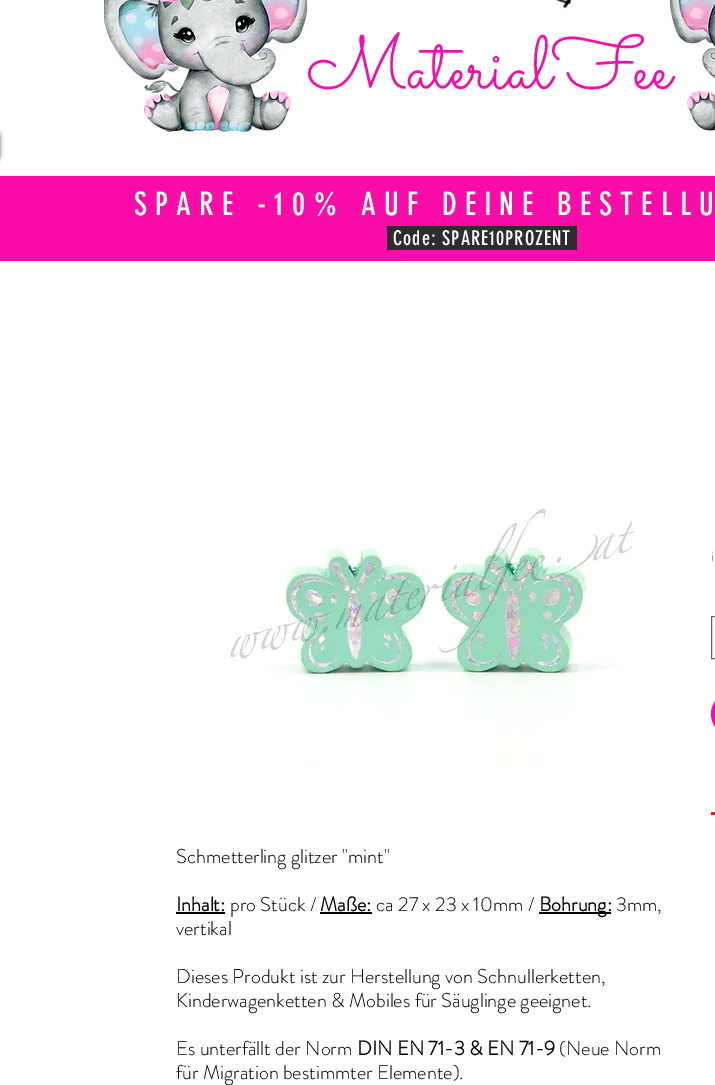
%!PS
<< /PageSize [715 1085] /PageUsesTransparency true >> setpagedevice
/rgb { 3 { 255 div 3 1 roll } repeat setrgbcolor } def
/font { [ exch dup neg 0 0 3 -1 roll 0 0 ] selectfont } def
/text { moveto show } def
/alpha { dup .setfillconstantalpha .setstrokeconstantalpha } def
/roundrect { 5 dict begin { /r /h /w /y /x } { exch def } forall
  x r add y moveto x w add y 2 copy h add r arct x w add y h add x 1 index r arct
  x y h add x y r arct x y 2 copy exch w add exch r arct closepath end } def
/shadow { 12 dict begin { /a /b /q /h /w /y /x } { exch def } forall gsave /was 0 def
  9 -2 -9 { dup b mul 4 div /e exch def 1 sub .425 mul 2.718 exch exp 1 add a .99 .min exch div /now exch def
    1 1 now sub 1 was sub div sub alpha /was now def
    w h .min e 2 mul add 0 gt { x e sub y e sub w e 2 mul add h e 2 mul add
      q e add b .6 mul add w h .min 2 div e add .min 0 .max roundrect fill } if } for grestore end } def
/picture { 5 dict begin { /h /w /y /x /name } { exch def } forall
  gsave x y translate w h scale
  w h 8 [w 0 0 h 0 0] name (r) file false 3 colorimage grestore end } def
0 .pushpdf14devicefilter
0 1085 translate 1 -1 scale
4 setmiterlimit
255 255 255 rgb
0 0 715 1085 rectfill
(img_01.rgb) 555 0 17 9 picture
(img_02.rgb) 104 0 203 132 picture
0 0 0 rgb
-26 126 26 40 20 2 0.6 shadow
248 13 169 rgb
0 176 715 85 rectfill
45 45 45 rgb
387 226 190 24 rectfill
102 102 102 rgb
711.5 616.5 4 42 rectstroke
247 12 169 rgb
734 691 moveto 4 0 rlineto 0 46 rlineto -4 0 rlineto -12.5 0 -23 -10.5 -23 -23 rcurveto 0 -12.5 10.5 -23 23 -23 rcurveto closepath fill
226 28 33 rgb
711 812 4 3 rectfill
(img_04.rgb) 229 508 406 257 picture
0 0 0 rgb
176 912 49 2 rectfill
320 912 52 2 rectfill
539 912 72 2 rectfill
/Sacramento-Regular 75 font
247 12 169 rgb
(MaterialFee) 307 88 text
(img_03.rgb) 670 0 45 131 picture
/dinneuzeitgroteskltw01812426-Regular 32 font
255 255 255 rgb
134 215 moveto 8 0 (SPARE -10% AUF DEINE BESTELLU) ashow
/dinneuzeitgroteskltw01812426-Regular 20 font
393 245 moveto 1 0 (Code: SPARE10PROZENT) ashow
/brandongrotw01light-Light 14 font
117 117 117 rgb
(i) 711 561 text
/brandongrotw01light-Light 20 font
0 0 0 rgb
(Schmetterling glitzer "mint") 176 863 text
/brandongrotw01light-Bold 20 font
(Inhalt:) 176 911 text
/brandongrotw01light-Light 20 font
(pro Stück /) 230 911 text
/brandongrotw01light-Bold 20 font
(Maße:) 320 911 text
/brandongrotw01light-Light 20 font
(ca 27 x 23 x 10mm /) 376 911 text
/brandongrotw01light-Bold 20 font
(Bohrung:) 539 911 text
/brandongrotw01light-Light 20 font
(3mm,) 616 911 text
(vertikal) 176 935 text
(Dieses Produkt ist zur Herstellung von Schnullerketten,) 176 983 text
(Kinderwagenketten & Mobiles für Säuglinge geeignet.) 176 1007 text
(Es unterfällt der Norm) 176 1055 text
/brandongrotw01light-Bold 20 font
(DIN EN 71-3 & EN 71-9) 357 1055 text
/brandongrotw01light-Light 20 font
(\(Neue Norm) 559 1055 text
(für Migration bestimmter Elemente\).) 176 1079 text
.poppdf14devicefilter showpage
